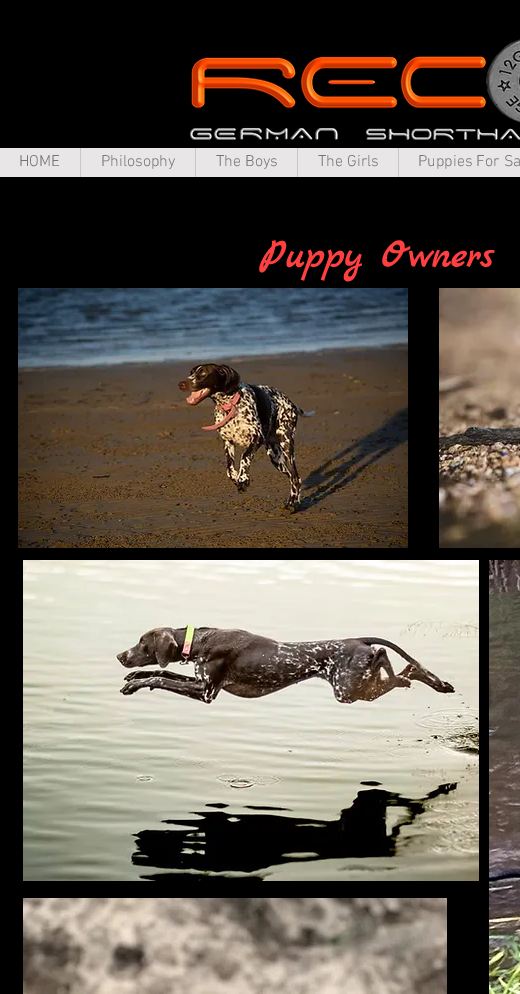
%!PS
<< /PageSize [520 994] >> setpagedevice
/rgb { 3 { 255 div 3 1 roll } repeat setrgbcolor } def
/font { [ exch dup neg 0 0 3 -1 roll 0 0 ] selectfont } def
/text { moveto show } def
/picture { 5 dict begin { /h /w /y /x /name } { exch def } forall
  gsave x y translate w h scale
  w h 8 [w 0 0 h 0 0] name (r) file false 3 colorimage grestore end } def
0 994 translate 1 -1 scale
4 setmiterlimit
0 0 0 rgb
0 0 520 994 rectfill
(img_01.rgb) 190 39 330 101 picture
232 230 230 rgb
0 148 520 29 rectfill
199 199 199 rgb
80 148 1 29 rectfill
195 148 1 29 rectfill
297 148 1 29 rectfill
398 148 1 29 rectfill
(img_02.rgb) 18 288 390 260 picture
(img_03.rgb) 439 288 81 260 picture
(img_04.rgb) 23 560 456 321 picture
(img_05.rgb) 489 560 31 434 picture
(img_06.rgb) 23 898 424 96 picture
/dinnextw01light-Light 16 font
117 117 117 rgb
(HOME) 19 166 text
(Philosophy) 101 166 text
(The Boys) 216 166 text
(The Girls) 318 166 text
(Puppies For Sa) 418 166 text
/MarckScript-Bold 40 font
255 64 64 rgb
(Puppy Owners) 260 267 text
showpage
